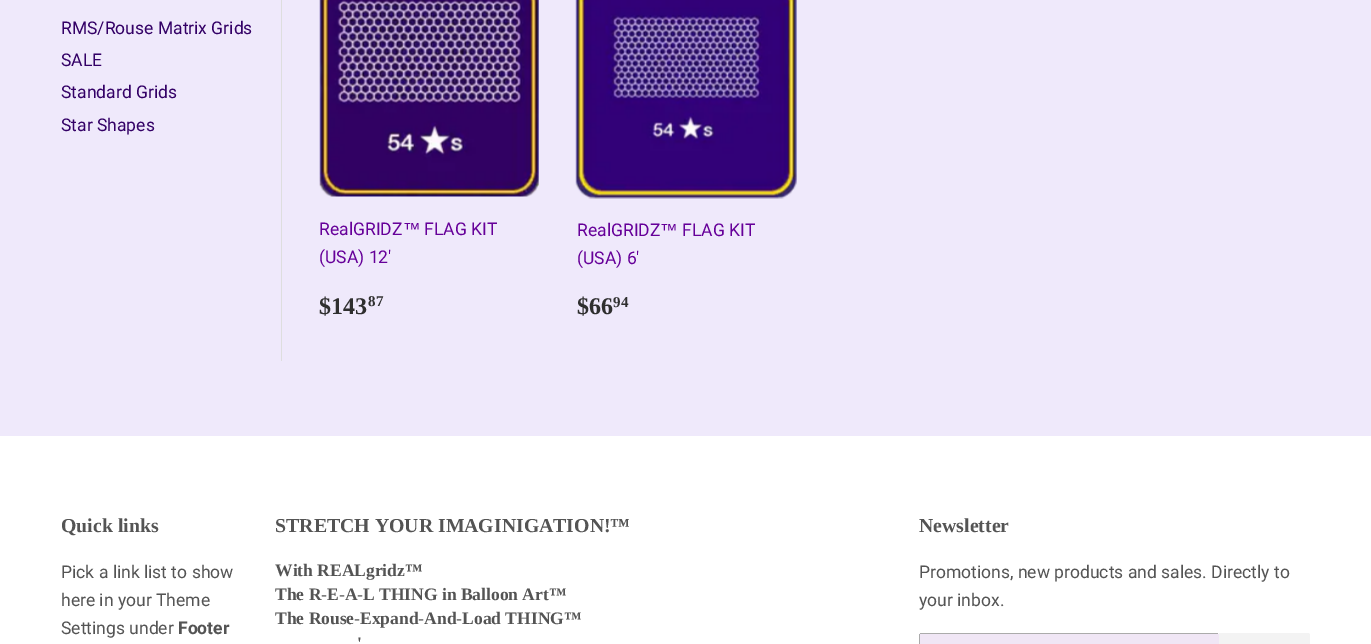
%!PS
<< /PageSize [1371 644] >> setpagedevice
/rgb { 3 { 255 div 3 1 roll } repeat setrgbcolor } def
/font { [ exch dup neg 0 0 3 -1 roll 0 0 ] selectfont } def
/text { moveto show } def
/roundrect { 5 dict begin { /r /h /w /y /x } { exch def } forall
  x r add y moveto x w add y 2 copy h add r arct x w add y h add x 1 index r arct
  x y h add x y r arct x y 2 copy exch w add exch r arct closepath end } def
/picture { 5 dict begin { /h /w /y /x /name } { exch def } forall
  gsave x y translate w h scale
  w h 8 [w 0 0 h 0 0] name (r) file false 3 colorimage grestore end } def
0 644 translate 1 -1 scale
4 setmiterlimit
239 233 251 rgb
0 0 1371 644 rectfill
222 222 222 rgb
281 0 1 361 rectfill
(img_01.rgb) 319 0 220 197 picture
(img_02.rgb) 575 0 222 199 picture
255 255 255 rgb
0 436 1371 208 rectfill
240 230 245 rgb
919 633 300 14 2.5 roundrect fill
171 171 171 rgb
920 633 298 1 rectfill
919 634 1 10 rectfill
243 243 243 rgb
1219 633 moveto 88.5 0 rlineto 1.5 0 2.5 1 2.5 2.5 rcurveto 0 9 rlineto 0 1.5 -1 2.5 -2.5 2.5 rcurveto -88.5 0 rlineto closepath fill
/Roboto-Regular 17.5 font
51 0 102 rgb
(RMS/Rouse Matrix Grids) 61 34 text
(SALE) 61 66 text
(Standard Grids) 61 98 text
(Star Shapes) 61 131 text
102 0 153 rgb
(RealGRIDZ) 319 235 text
/LiberationSans-Regular 17.5 font
(™) 403 235 text
/Roboto-Regular 17.5 font
(FLAG KIT) 424 235 text
(\(USA\) 12') 319 263 text
/LiberationSerif-Bold 24 font
47 47 47 rgb
($143) 319 314 text
/LiberationSerif-Bold 15 font
(87) 368 306 text
/Roboto-Regular 17.5 font
102 0 153 rgb
(RealGRIDZ) 577 236 text
/LiberationSans-Regular 17.5 font
(™) 660 236 text
/Roboto-Regular 17.5 font
(FLAG KIT) 682 236 text
(\(USA\) 6') 577 264 text
/LiberationSerif-Bold 24 font
47 47 47 rgb
($66) 577 314 text
/LiberationSerif-Bold 15 font
(94) 613 307 text
/LiberationSerif-Bold 19.8 font
84 84 84 rgb
(Quick links) 61 532 text
/Roboto-Regular 17.5 font
(Pick a link list to show) 61 578 text
(here in your Theme) 61 606 text
(Settings under) 61 634 text
/Roboto-Bold 17.5 font
(Footer) 178 634 text
/LiberationSerif-Bold 19.8 font
(STRETCH YOUR IMAGINIGATION!™) 275 532 text
/LiberationSerif-Bold 17.5 font
(With REALgridz™) 275 576 text
(The R-E-A-L THING in Balloon Art™) 275 600 text
(The Rouse-Expand-And-Load THING™) 275 624 text
(') 357 649 text
/LiberationSerif-Bold 19.8 font
(Newsletter) 919 532 text
/Roboto-Regular 17.5 font
(Promotions, new products and sales. Directly to) 919 578 text
(your inbox.) 919 606 text
showpage
